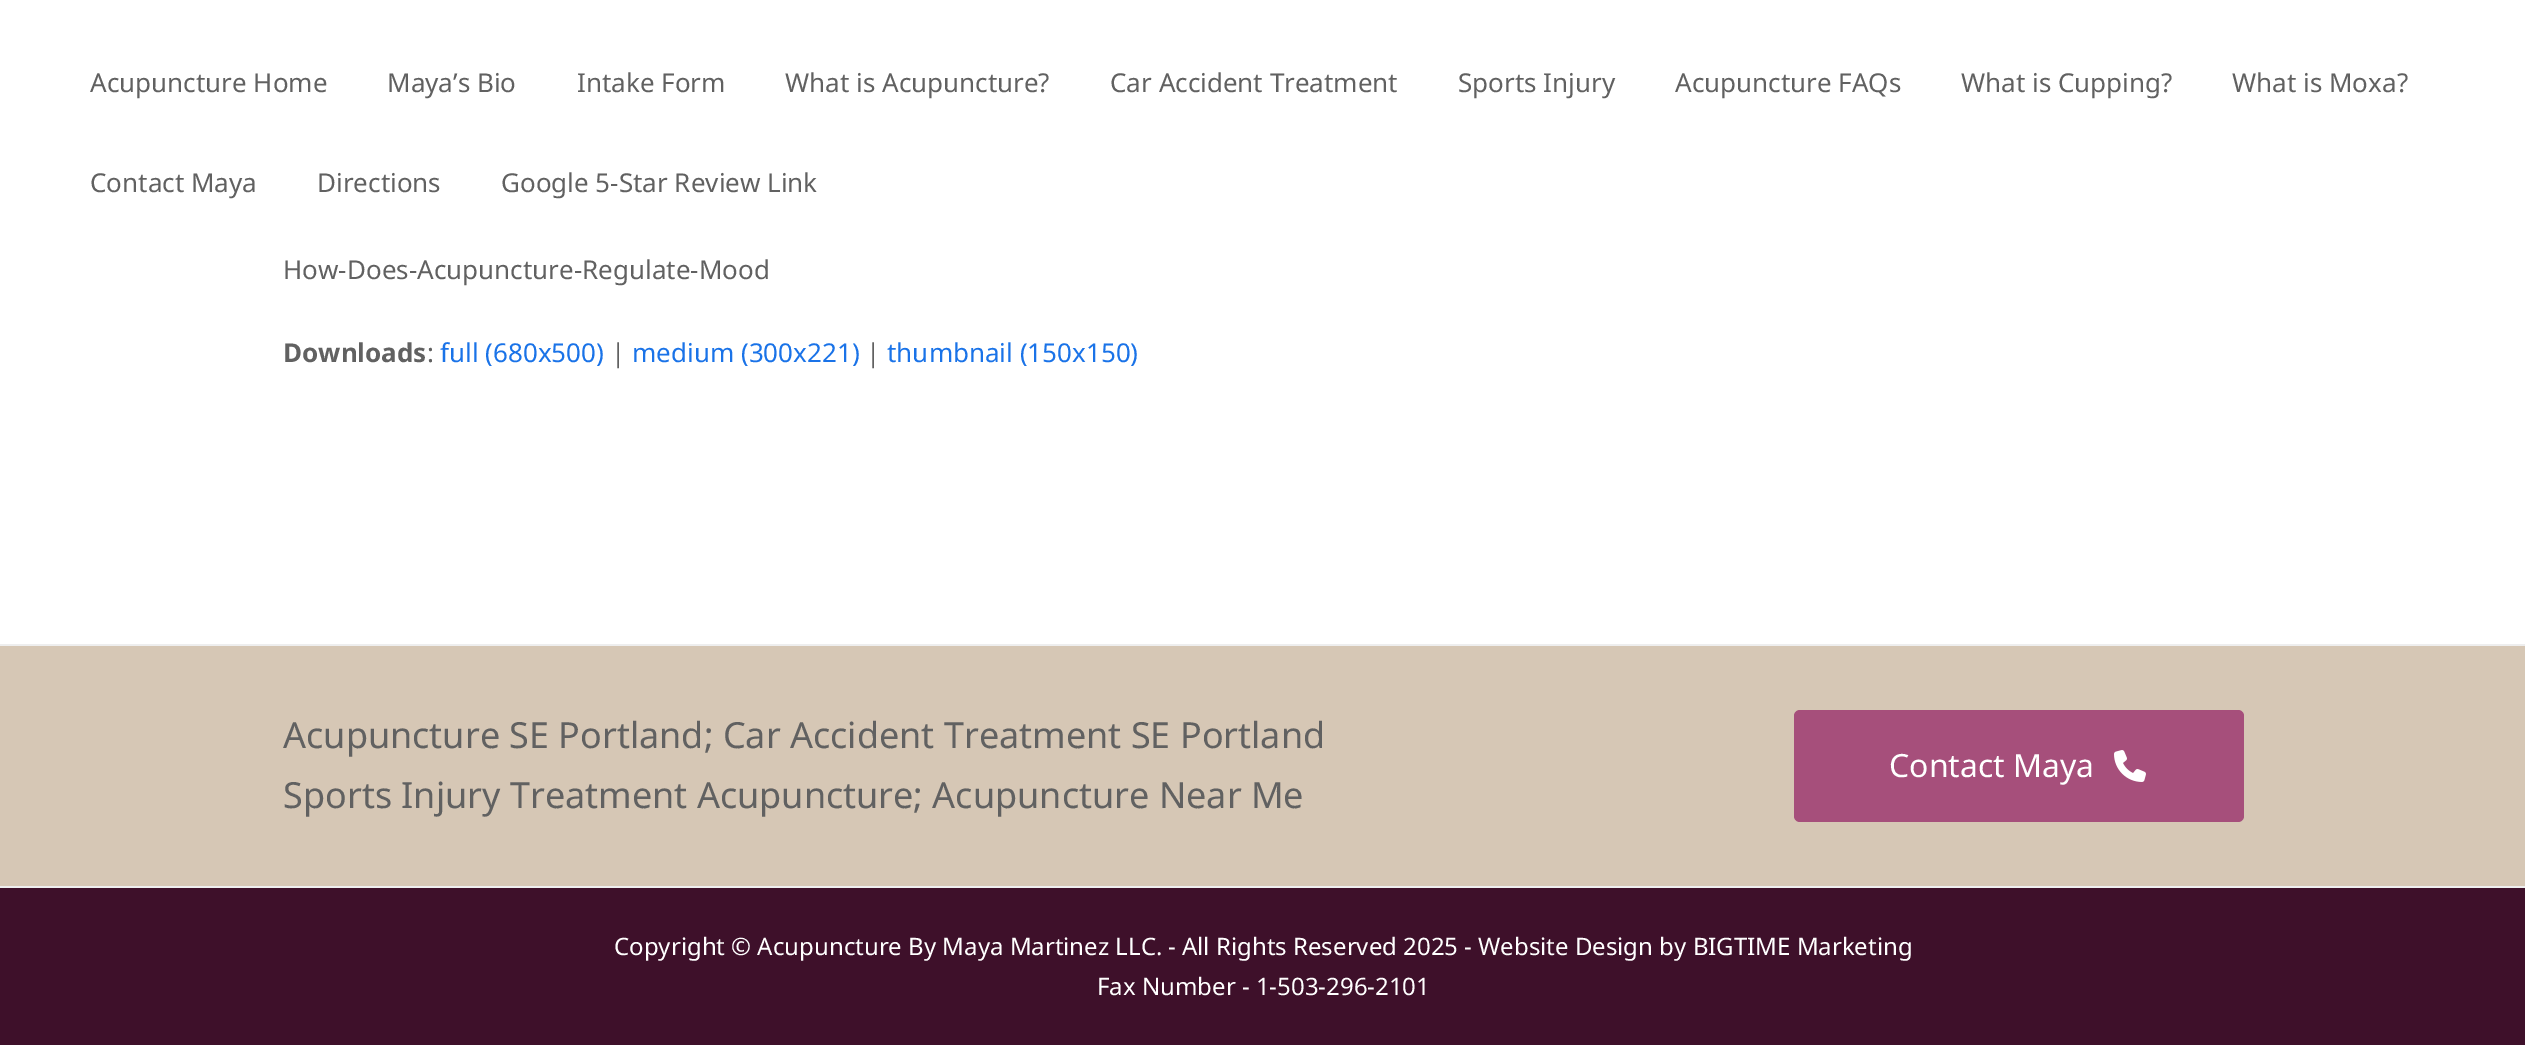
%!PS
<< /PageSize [2525 1045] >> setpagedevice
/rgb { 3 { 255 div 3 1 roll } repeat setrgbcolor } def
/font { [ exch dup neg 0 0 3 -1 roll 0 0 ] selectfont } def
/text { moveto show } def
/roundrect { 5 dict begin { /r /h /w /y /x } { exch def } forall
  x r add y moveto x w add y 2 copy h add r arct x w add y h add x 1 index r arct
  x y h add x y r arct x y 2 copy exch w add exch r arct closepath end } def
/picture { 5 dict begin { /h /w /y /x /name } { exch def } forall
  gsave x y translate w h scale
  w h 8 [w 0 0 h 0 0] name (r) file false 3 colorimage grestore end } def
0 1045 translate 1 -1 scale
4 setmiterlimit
255 255 255 rgb
0 0 2525 1045 rectfill
214 199 181 rgb
0 646 2525 240 rectfill
238 238 238 rgb
0 644 2525 2 rectfill
0 886 2525 2 rectfill
166 79 123 rgb
1794 710 450 112 6 roundrect fill
(img_01.rgb) 2114 750 32 32 picture
62 16 42 rgb
0 888 2525 157 rectfill
/NotoSans-Regular 26 font
97 97 97 rgb
(Acupuncture Home) 90 92 text
(Maya’s Bio) 387 92 text
(Intake Form) 577 92 text
(What is Acupuncture?) 785 92 text
(Car Accident Treatment) 1110 92 text
(Sports Injury) 1458 92 text
(Acupuncture FAQs) 1675 92 text
(What is Cupping?) 1961 92 text
(What is Moxa?) 2232 92 text
(Contact Maya) 90 192 text
(Directions) 317 192 text
(Google 5-Star Review Link) 501 192 text
(How-Does-Acupuncture-Regulate-Mood) 283 279 text
/NotoSans-Bold 26 font
(Downloads) 283 362 text
/NotoSans-Regular 26 font
(:) 427 362 text
26 115 232 rgb
(full \(680x500\)) 440 362 text
97 97 97 rgb
(|) 611 362 text
26 115 232 rgb
(medium \(300x221\)) 632 362 text
97 97 97 rgb
(|) 866 362 text
26 115 232 rgb
(thumbnail \(150x150\)) 887 362 text
/NotoSans-Regular 36 font
97 97 97 rgb
(Acupuncture SE Portland; Car Accident Treatment SE Portland) 283 748 text
(Sports Injury Treatment Acupuncture; Acupuncture Near Me) 283 808 text
/NotoSans-Regular 32 font
255 255 255 rgb
(Contact Maya) 1889 777 text
/NotoSans-Regular 24 font
(Copyright © Acupuncture By Maya Martinez LLC.) 614 955 text
(- All Rights Reserved 2025 -) 1168 955 text
(Website Design by BIGTIME Marketing) 1478 955 text
(Fax Number - 1-503-296-2101) 1097 995 text
showpage
